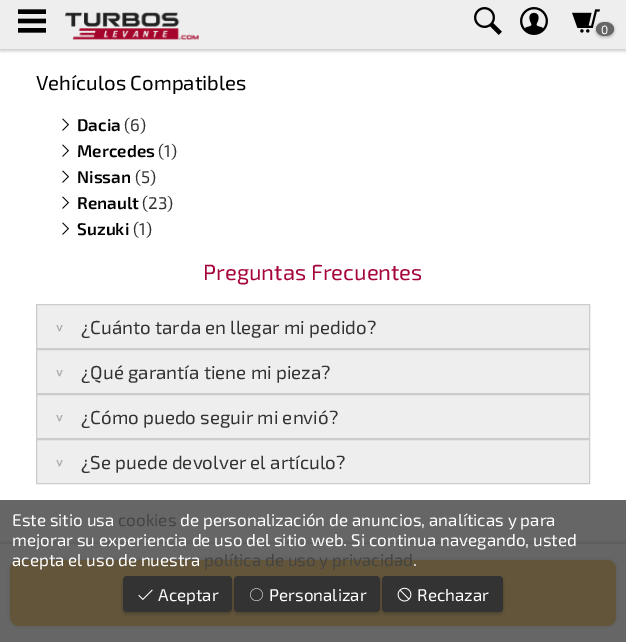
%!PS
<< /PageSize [626 642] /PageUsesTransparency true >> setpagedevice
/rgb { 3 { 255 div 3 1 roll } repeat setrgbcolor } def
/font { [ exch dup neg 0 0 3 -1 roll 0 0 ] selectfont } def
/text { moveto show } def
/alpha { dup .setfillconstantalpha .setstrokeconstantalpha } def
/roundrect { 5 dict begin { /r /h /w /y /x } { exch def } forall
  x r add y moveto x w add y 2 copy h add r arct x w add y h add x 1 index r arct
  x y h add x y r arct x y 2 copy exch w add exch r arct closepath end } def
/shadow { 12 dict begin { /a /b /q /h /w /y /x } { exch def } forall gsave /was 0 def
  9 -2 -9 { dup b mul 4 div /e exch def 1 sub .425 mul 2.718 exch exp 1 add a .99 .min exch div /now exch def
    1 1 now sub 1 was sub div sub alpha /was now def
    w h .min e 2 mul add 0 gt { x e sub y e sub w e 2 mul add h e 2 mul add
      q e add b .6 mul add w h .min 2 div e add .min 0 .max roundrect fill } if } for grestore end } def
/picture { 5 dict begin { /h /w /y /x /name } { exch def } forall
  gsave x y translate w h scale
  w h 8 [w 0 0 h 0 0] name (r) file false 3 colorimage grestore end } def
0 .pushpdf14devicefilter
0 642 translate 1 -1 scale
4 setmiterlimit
255 255 255 rgb
0 0 626 642 rectfill
102 102 102 rgb
0 500 626 44 rectfill
0 0 0 rgb
0 2 626 49 0 1.5 0.2 shadow
238 238 238 rgb
0 0 626 49 rectfill
(img_01.rgb) 18 9 28 24 picture
(img_02.rgb) 65 12 134 28 picture
(img_03.rgb) 474 7 28 28 picture
(img_04.rgb) 520 7 28 28 picture
(img_05.rgb) 572 9 28 24 picture
0 0 0 rgb
596 23 18 14 7 1.5 0.3 shadow
102 102 102 rgb
605 22 moveto 5 0 9 3 9 7 rcurveto 0 4 -4 7 -9 7 rcurveto -5 0 -9 -3 -9 -7 rcurveto 0 -4 4 -7 9 -7 rcurveto closepath fill
(img_06.rgb) 62 118 7 13 picture
(img_06.rgb) 62 144 7 13 picture
(img_06.rgb) 62 170 7 13 picture
(img_06.rgb) 62 196 7 13 picture
(img_06.rgb) 62 222 7 13 picture
238 238 238 rgb
36.5 304.5 moveto 553 0 rlineto 0 44 rlineto -553 0 rlineto closepath gsave fill grestore
204 204 204 rgb
stroke
238 238 238 rgb
36.5 349.5 moveto 553 0 rlineto 0 44 rlineto -553 0 rlineto closepath gsave fill grestore
204 204 204 rgb
stroke
238 238 238 rgb
36.5 394.5 moveto 553 0 rlineto 0 44 rlineto -553 0 rlineto closepath gsave fill grestore
204 204 204 rgb
stroke
238 238 238 rgb
36.5 439.5 moveto 553 0 rlineto 0 44 rlineto -553 0 rlineto closepath gsave fill grestore
204 204 204 rgb
stroke
51 51 51 rgb
0 542 626 98 0 1.5 0.2 shadow
102 102 102 rgb
0 544 626 98 rectfill
51 51 51 rgb
10 560 606 66 9 3.5 0.2 shadow
99 85 58 rgb
10 560 606 66 9 roundrect fill
0 0 0 rgb
123 578 109 36 4 1.5 0.2 shadow
51 51 51 rgb
123 576 109 36 4 roundrect fill
(img_07.rgb) 138 589 15 12 picture
0 0 0 rgb
234 578 146 36 4 1.5 0.2 shadow
51 51 51 rgb
234 576 146 36 4 roundrect fill
(img_08.rgb) 250 588 13 13 picture
0 0 0 rgb
382 578 121 36 4 1.5 0.2 shadow
51 51 51 rgb
382 576 121 36 4 roundrect fill
(img_09.rgb) 397 587 15 15 picture
/Exo2-Regular 12 font
255 255 255 rgb
(0) 601 34 text
/Exo2-Regular 20.4 font
0 0 0 rgb
(Vehículos Compatibles) 36 90 text
/Exo2-SemiBold 17 font
(Dacia) 77 131 text
/Exo2-Regular 17 font
51 51 51 rgb
(\(6\)) 124 131 text
/Exo2-SemiBold 17 font
0 0 0 rgb
(Mercedes) 77 157 text
/Exo2-Regular 17 font
51 51 51 rgb
(\(1\)) 158 157 text
/Exo2-SemiBold 17 font
0 0 0 rgb
(Nissan) 77 183 text
/Exo2-Regular 17 font
51 51 51 rgb
(\(5\)) 135 183 text
/Exo2-SemiBold 17 font
0 0 0 rgb
(Renault) 77 209 text
/Exo2-Regular 17 font
51 51 51 rgb
(\(23\)) 142 209 text
/Exo2-SemiBold 17 font
0 0 0 rgb
(Suzuki) 77 235 text
/Exo2-Regular 17 font
51 51 51 rgb
(\(1\)) 133 235 text
/Exo2-Regular 22 font
166 5 59 rgb
(Preguntas Frecuentes) 203 280 text
/Exo2-SemiBold 15 font
170 170 170 rgb
gsave 55 324 translate 90 rotate 0 0 moveto (>) show grestore
/Exo2-Regular 18.75 font
51 51 51 rgb
(¿Cuánto tarda en llegar mi pedido?) 81 334 text
/Exo2-SemiBold 15 font
170 170 170 rgb
gsave 55 369 translate 90 rotate 0 0 moveto (>) show grestore
/Exo2-Regular 18.75 font
51 51 51 rgb
(¿Qué garantía tiene mi pieza?) 81 379 text
/Exo2-SemiBold 15 font
170 170 170 rgb
gsave 55 414 translate 90 rotate 0 0 moveto (>) show grestore
/Exo2-Regular 18.75 font
51 51 51 rgb
(¿Cómo puedo seguir mi envió?) 81 424 text
/Exo2-SemiBold 15 font
170 170 170 rgb
gsave 55 459 translate 90 rotate 0 0 moveto (>) show grestore
/Exo2-Regular 18.75 font
51 51 51 rgb
(¿Se puede devolver el artículo?) 81 469 text
/Exo2-Regular 17 font
255 255 255 rgb
(Este sitio usa) 12 526 text
68 68 68 rgb
(cookies) 118 526 text
255 255 255 rgb
(de personalización de anuncios, analíticas y para) 180 526 text
(mejorar su experiencia de uso del sitio web. Si continua navegando, usted) 12 546 text
(acepta el uso de nuestra) 12 566 text
68 68 68 rgb
(política de uso y privacidad) 204 566 text
255 255 255 rgb
(.) 413 566 text
(Aceptar) 158 601 text
(Personalizar) 269 601 text
(Rechazar) 417 601 text
.poppdf14devicefilter showpage
